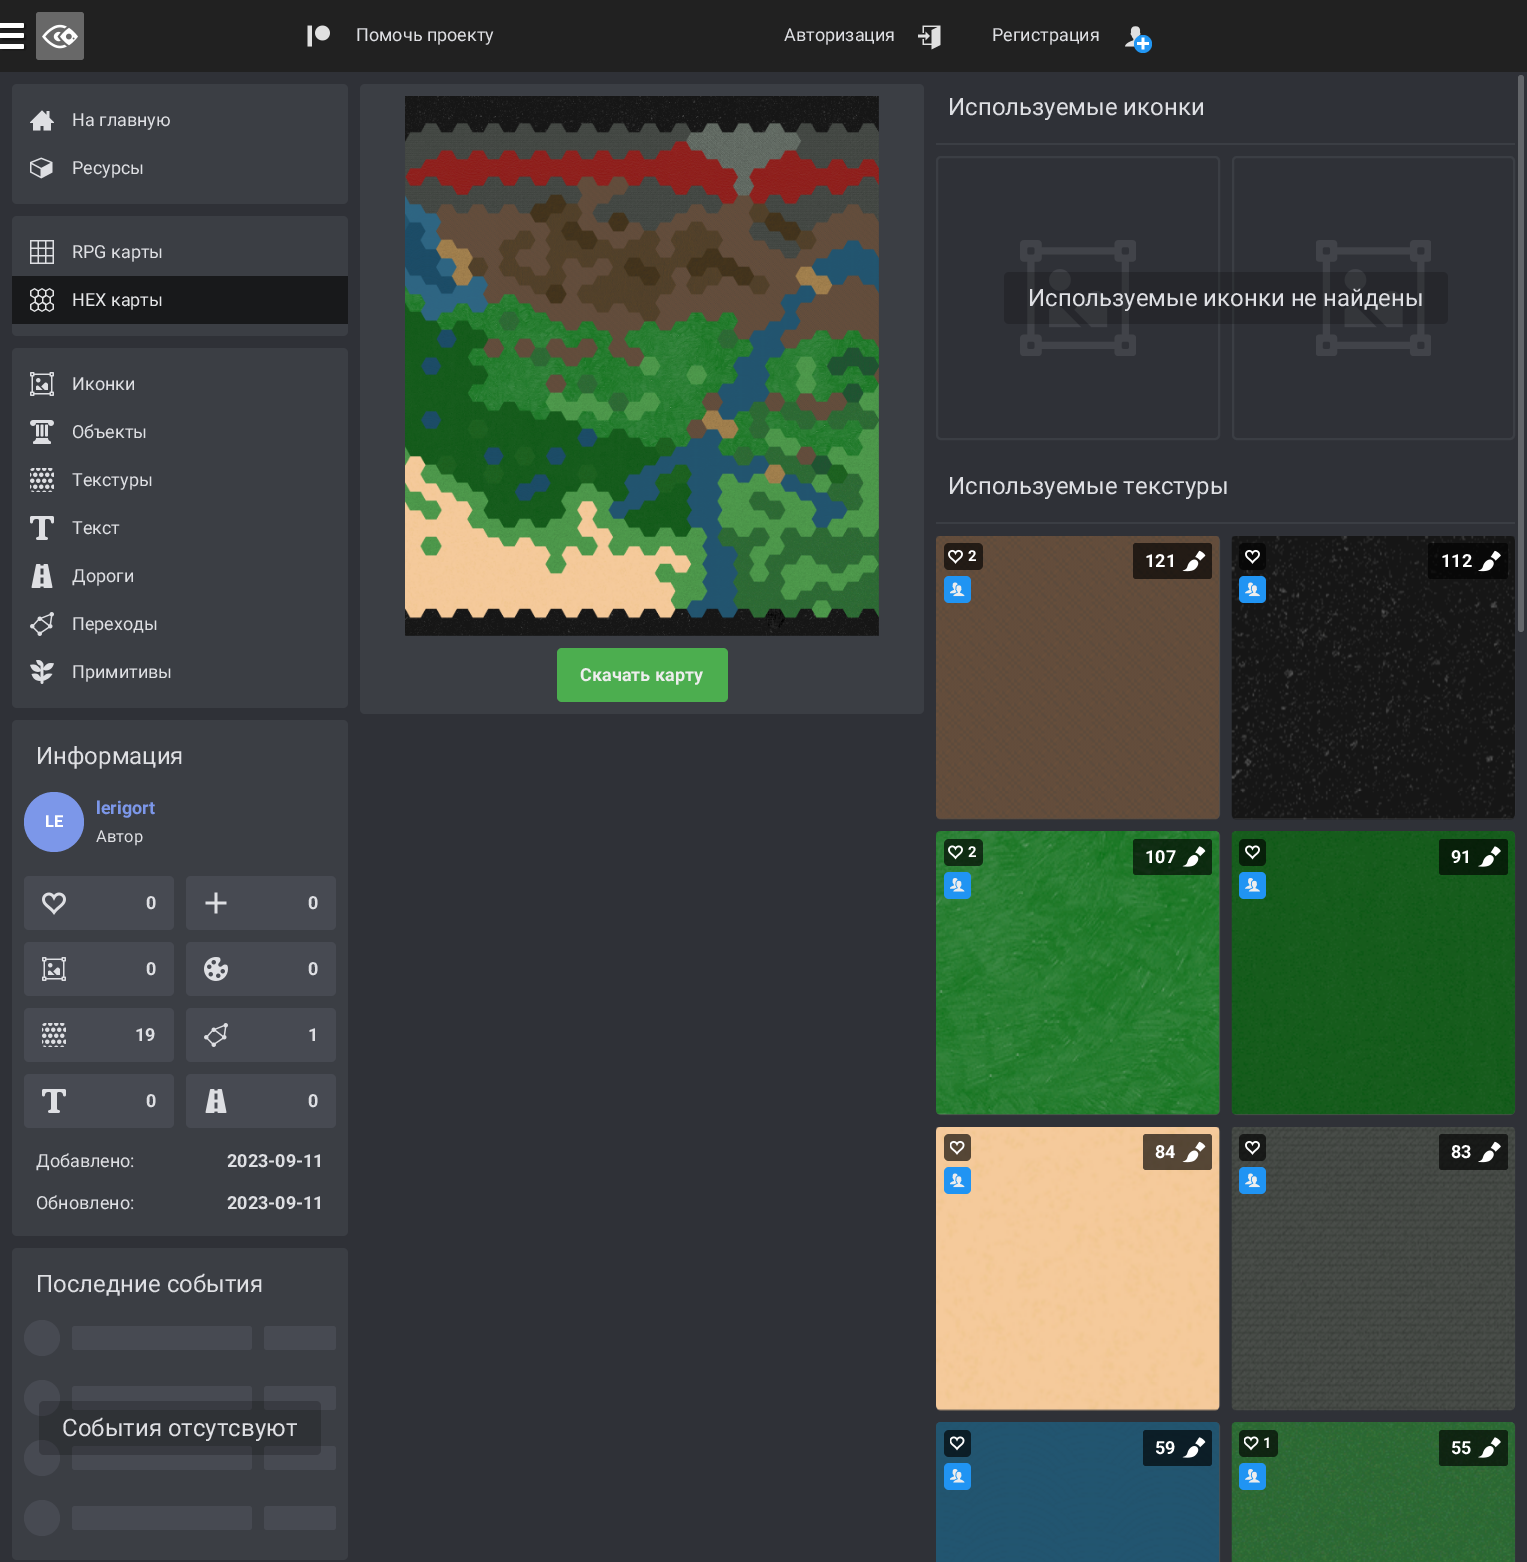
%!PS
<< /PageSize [1527 1562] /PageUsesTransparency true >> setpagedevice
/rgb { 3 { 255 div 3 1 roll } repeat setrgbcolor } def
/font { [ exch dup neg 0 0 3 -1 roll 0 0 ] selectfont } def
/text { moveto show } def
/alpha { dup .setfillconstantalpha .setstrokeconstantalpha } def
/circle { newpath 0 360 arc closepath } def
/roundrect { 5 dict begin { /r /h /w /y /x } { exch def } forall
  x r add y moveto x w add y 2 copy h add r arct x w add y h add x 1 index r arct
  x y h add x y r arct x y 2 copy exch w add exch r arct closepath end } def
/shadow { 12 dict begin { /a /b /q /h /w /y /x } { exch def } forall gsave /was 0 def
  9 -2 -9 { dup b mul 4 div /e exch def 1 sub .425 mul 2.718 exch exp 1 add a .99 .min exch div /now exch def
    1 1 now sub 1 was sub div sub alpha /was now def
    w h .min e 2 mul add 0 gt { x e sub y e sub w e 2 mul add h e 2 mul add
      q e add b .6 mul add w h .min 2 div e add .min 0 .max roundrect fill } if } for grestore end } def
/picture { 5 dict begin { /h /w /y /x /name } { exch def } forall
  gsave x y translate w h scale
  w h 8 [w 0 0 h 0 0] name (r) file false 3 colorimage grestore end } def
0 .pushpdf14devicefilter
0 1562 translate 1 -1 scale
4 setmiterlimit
47 49 55 rgb
0 0 1527 1562 rectfill
33 33 33 rgb
0 0 1527 72 rectfill
0 0 0 rgb
2 24 24 5 1.5 1 0.4 shadow
255 255 255 rgb
0 23 moveto 22.5 0 rlineto 1 0 1.5 0.5 1.5 1.5 rcurveto 0 2 rlineto 0 1 -0.5 1.5 -1.5 1.5 rcurveto -22.5 0 rlineto closepath fill
0 0 0 rgb
2 35 24 5 1.5 1 0.4 shadow
255 255 255 rgb
0 33 moveto 22.5 0 rlineto 1 0 1.5 0.5 1.5 1.5 rcurveto 0 2 rlineto 0 1 -0.5 1.5 -1.5 1.5 rcurveto -22.5 0 rlineto closepath fill
0 0 0 rgb
2 45 24 5 1.5 1 0.4 shadow
255 255 255 rgb
0 44 moveto 22.5 0 rlineto 1 0 1.5 0.5 1.5 1.5 rcurveto 0 2 rlineto 0 1 -0.5 1.5 -1.5 1.5 rcurveto -22.5 0 rlineto closepath fill
77 77 77 rgb
36 12 48 48 3 roundrect fill
0.15 alpha
255 255 255 rgb
36 12 48 48 3 roundrect fill
1 alpha
(img_01.rgb) 42 24 36 25 picture
(img_02.rgb) 307 25 23 22 picture
(img_03.rgb) 918 25 23 25 picture
(img_04.rgb) 1125 26 16 21 picture
33 150 243 rgb
1143 44 9 circle fill
(img_05.rgb) 1137 37 12 13 picture
59 62 68 rgb
12 84 336 120 5 roundrect fill
(img_06.rgb) 30 110 24 21 picture
(img_07.rgb) 30 157 23 22 picture
12 216 336 120 5 roundrect fill
(img_08.rgb) 30 240 24 24 picture
24 25 27 rgb
12 276 336 48 rectfill
(img_09.rgb) 30 288 24 24 picture
59 62 68 rgb
12 348 336 360 5 roundrect fill
(img_10.rgb) 30 372 24 24 picture
(img_11.rgb) 30 420 24 24 picture
(img_12.rgb) 30 468 24 24 picture
(img_13.rgb) 30 516 24 24 picture
(img_14.rgb) 31 564 22 24 picture
(img_15.rgb) 30 612 24 24 picture
(img_16.rgb) 30 660 24 24 picture
12 720 336 516 5 roundrect fill
124 151 233 rgb
54 822 30 circle fill
71 74 82 rgb
24 876 150 54 5 roundrect fill
(img_17.rgb) 42 892 24 23 picture
186 876 150 54 5 roundrect fill
(img_18.rgb) 205 892 22 22 picture
24 942 150 54 5 roundrect fill
(img_19.rgb) 42 957 24 24 picture
186 942 150 54 5 roundrect fill
(img_20.rgb) 204 957 24 24 picture
24 1008 150 54 5 roundrect fill
(img_21.rgb) 42 1023 24 24 picture
186 1008 150 54 5 roundrect fill
(img_22.rgb) 204 1023 24 24 picture
24 1074 150 54 5 roundrect fill
(img_23.rgb) 42 1089 24 24 picture
186 1074 150 54 5 roundrect fill
(img_24.rgb) 205 1089 22 24 picture
59 62 68 rgb
12 1248 336 312 5 roundrect fill
71 74 82 rgb
42 1338 18 circle fill
72 1326 180 24 3 roundrect fill
264 1326 72 24 3 roundrect fill
42 1398 18 circle fill
72 1386 180 24 3 roundrect fill
264 1386 72 24 3 roundrect fill
42 1458 18 circle fill
72 1446 180 24 3 roundrect fill
264 1446 72 24 3 roundrect fill
42 1518 18 circle fill
72 1506 180 24 3 roundrect fill
264 1506 72 24 3 roundrect fill
0.2 alpha
0 0 0 rgb
39 1401 282 54 5 roundrect fill
1 alpha
59 62 68 rgb
360 84 564 630 5 roundrect fill
(img_25.rgb) 405 96 474 540 picture
76 174 79 rgb
557 648 171 54 5 roundrect fill
59 62 68 rgb
936 143 579 2 rectfill
2 setlinewidth
937 157 282 282 4 roundrect stroke
(img_26.rgb) 1020 240 116 116 picture
1233 157 281 282 4 roundrect stroke
(img_27.rgb) 1316 240 115 116 picture
0.2 alpha
0 0 0 rgb
1004 272 444 52 5 roundrect fill
1 alpha
59 62 68 rgb
936 522 579 2 rectfill
937 537 282 281 4 roundrect stroke
77 77 77 rgb
936 536 284 283 5 roundrect fill
(img_28.rgb) 936 536 284 284 picture
0.65 alpha
0 0 0 rgb
944 543 39 27 5 roundrect fill
1 alpha
(img_29.rgb) 948 549 15 15 picture
32 148 243 rgb
944 576 27 27 5 roundrect fill
(img_30.rgb) 950 582 15 15 picture
0.65 alpha
0 0 0 rgb
1133 543 79 36 3 roundrect fill
1 alpha
(img_31.rgb) 1182 550 24 22 picture
59 62 68 rgb
1233 537 281 281 4 roundrect stroke
77 77 77 rgb
1232 536 283 283 5 roundrect fill
(img_32.rgb) 1231 536 284 284 picture
0.65 alpha
0 0 0 rgb
1239 543 27 27 5 roundrect fill
1 alpha
(img_33.rgb) 1245 549 15 15 picture
32 148 243 rgb
1239 576 27 27 5 roundrect fill
(img_34.rgb) 1245 582 15 15 picture
0.65 alpha
0 0 0 rgb
1428 543 80 36 3 roundrect fill
1 alpha
(img_35.rgb) 1478 550 23 22 picture
59 62 68 rgb
937 832 282 282 4 roundrect stroke
77 77 77 rgb
936 831 284 284 5 roundrect fill
(img_36.rgb) 936 831 284 284 picture
0.65 alpha
0 0 0 rgb
944 839 39 27 5 roundrect fill
1 alpha
(img_37.rgb) 948 845 15 15 picture
32 148 243 rgb
944 872 27 27 5 roundrect fill
(img_38.rgb) 950 878 15 14 picture
0.65 alpha
0 0 0 rgb
1133 839 79 36 3 roundrect fill
1 alpha
(img_39.rgb) 1182 846 24 21 picture
59 62 68 rgb
1233 832 281 282 4 roundrect stroke
77 77 77 rgb
1232 831 283 284 5 roundrect fill
(img_40.rgb) 1231 831 284 284 picture
0.65 alpha
0 0 0 rgb
1239 839 27 27 5 roundrect fill
1 alpha
(img_41.rgb) 1245 845 15 15 picture
32 148 243 rgb
1239 872 27 27 5 roundrect fill
(img_42.rgb) 1245 878 15 14 picture
0.65 alpha
0 0 0 rgb
1439 839 69 36 3 roundrect fill
1 alpha
(img_43.rgb) 1478 846 23 21 picture
59 62 68 rgb
937 1128 282 281 4 roundrect stroke
77 77 77 rgb
936 1127 284 283 5 roundrect fill
(img_44.rgb) 936 1127 284 284 picture
0.65 alpha
0 0 0 rgb
944 1134 27 27 5 roundrect fill
1 alpha
(img_45.rgb) 950 1140 15 15 picture
32 148 243 rgb
944 1167 27 27 5 roundrect fill
(img_30.rgb) 950 1173 15 15 picture
0.65 alpha
0 0 0 rgb
1143 1134 69 36 3 roundrect fill
1 alpha
(img_46.rgb) 1182 1141 24 22 picture
59 62 68 rgb
1233 1128 281 281 4 roundrect stroke
77 77 77 rgb
1232 1127 283 283 5 roundrect fill
(img_47.rgb) 1231 1127 284 284 picture
0.65 alpha
0 0 0 rgb
1239 1134 27 27 5 roundrect fill
1 alpha
(img_48.rgb) 1245 1140 15 15 picture
32 148 243 rgb
1239 1167 27 27 5 roundrect fill
(img_34.rgb) 1245 1173 15 15 picture
0.65 alpha
0 0 0 rgb
1439 1134 69 36 3 roundrect fill
1 alpha
(img_49.rgb) 1478 1141 23 22 picture
59 62 68 rgb
937 1423 282 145 4 roundrect stroke
77 77 77 rgb
936 1422 284 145 5 roundrect fill
(img_50.rgb) 936 1422 284 140 picture
0.65 alpha
0 0 0 rgb
944 1430 27 27 5 roundrect fill
1 alpha
(img_51.rgb) 950 1436 15 15 picture
32 148 243 rgb
944 1463 27 27 5 roundrect fill
(img_38.rgb) 950 1469 15 14 picture
0.65 alpha
0 0 0 rgb
1143 1430 69 36 3 roundrect fill
1 alpha
(img_52.rgb) 1182 1437 24 21 picture
59 62 68 rgb
1233 1423 281 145 4 roundrect stroke
(img_53.rgb) 1231 1422 284 140 picture
0.65 alpha
0 0 0 rgb
1239 1430 39 27 5 roundrect fill
1 alpha
(img_54.rgb) 1244 1436 15 15 picture
32 148 243 rgb
1239 1463 27 27 5 roundrect fill
(img_42.rgb) 1245 1469 15 14 picture
0.65 alpha
0 0 0 rgb
1439 1430 69 36 3 roundrect fill
1 alpha
(img_55.rgb) 1478 1437 23 21 picture
99 101 105 rgb
1518 75 6 557 3 roundrect fill
/Roboto-Regular 18 font
222 223 227 rgb
(Помочь проекту) 356 41 text
(Авторизация) 784 41 text
(Регистрация) 992 41 text
(На главную) 72 126 text
(Ресурсы) 72 174 text
(RPG карты) 72 258 text
228 229 231 rgb
(HEX карты) 72 306 text
222 223 227 rgb
(Иконки) 72 390 text
(Объекты) 72 438 text
(Текстуры) 72 486 text
(Текст) 72 534 text
(Дороги) 72 582 text
(Переходы) 72 630 text
(Примитивы) 72 678 text
/Roboto-Regular 24 font
(Информация) 36 764 text
/Roboto-Bold 16.5 font
255 255 255 rgb
(LE) 45 827 text
/Roboto-Bold 18 font
124 151 233 rgb
(lerigort) 96 814 text
/Roboto-Regular 16.5 font
222 223 227 rgb
(Автор) 96 842 text
/Roboto-Bold 18 font
(0) 146 909 text
(0) 308 909 text
(0) 146 975 text
(0) 308 975 text
(19) 135 1041 text
(1) 308 1041 text
(0) 146 1107 text
(0) 308 1107 text
/Roboto-Regular 18 font
(Добавлено:) 36 1167 text
/Roboto-Bold 18 font
(2023-09-11) 227 1167 text
/Roboto-Regular 18 font
(Обновлено:) 36 1209 text
/Roboto-Bold 18 font
(2023-09-11) 227 1209 text
/Roboto-Regular 24 font
(Последние события) 36 1292 text
(События отсутсвуют) 62 1436 text
/Roboto-Bold 18 font
237 237 237 rgb
(Скачать карту) 580 681 text
/Roboto-Regular 24 font
222 223 227 rgb
(Используемые иконки) 948 115 text
(Используемые иконки не найдены) 1028 306 text
(Используемые текстуры) 948 494 text
/Roboto-Bold 15 font
255 255 255 rgb
(2) 968 561 text
/Roboto-Bold 18 font
(121) 1145 567 text
(112) 1441 567 text
/Roboto-Bold 15 font
(2) 968 857 text
/Roboto-Bold 18 font
(107) 1145 863 text
(91) 1451 863 text
(84) 1155 1158 text
(83) 1451 1158 text
(59) 1155 1454 text
/Roboto-Bold 15 font
(1) 1263 1448 text
/Roboto-Bold 18 font
(55) 1451 1454 text
.poppdf14devicefilter showpage
